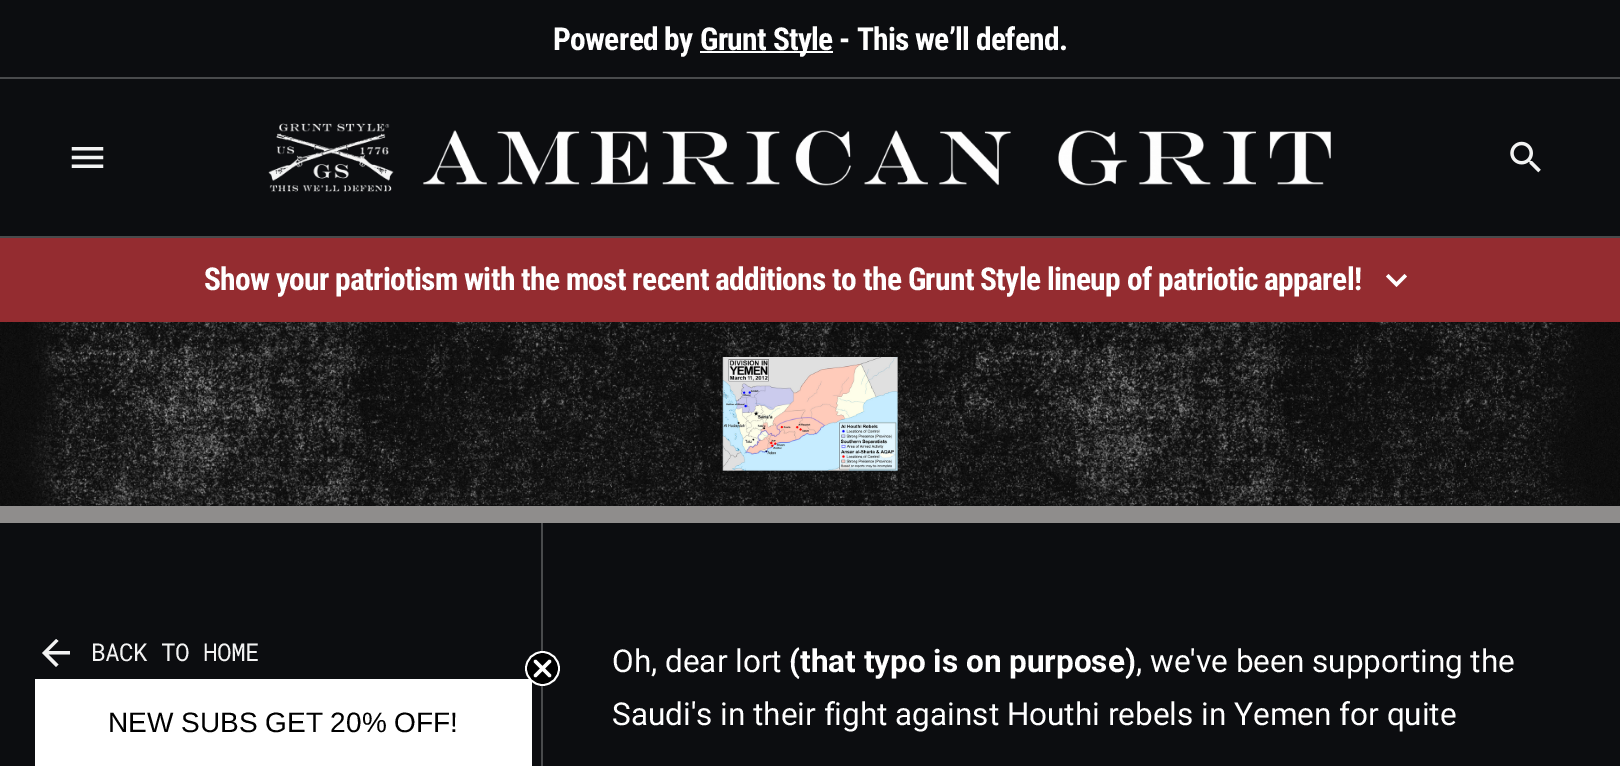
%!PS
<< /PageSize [1620 766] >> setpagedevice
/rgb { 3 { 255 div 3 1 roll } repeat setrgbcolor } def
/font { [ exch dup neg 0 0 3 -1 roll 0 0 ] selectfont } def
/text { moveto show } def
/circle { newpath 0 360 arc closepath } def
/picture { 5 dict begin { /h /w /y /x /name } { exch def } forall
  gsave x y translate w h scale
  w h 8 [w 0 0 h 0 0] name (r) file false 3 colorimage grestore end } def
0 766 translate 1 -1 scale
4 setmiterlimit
12 13 16 rgb
0 0 1620 766 rectfill
73 74 76 rgb
0 77 1620 2 rectfill
255 255 255 rgb
700 51 133 2 rectfill
73 74 76 rgb
0 236 1620 2 rectfill
(img_01.rgb) 71 147 33 21 picture
(img_02.rgb) 268 123 1063 69 picture
(img_03.rgb) 1510 141 31 32 picture
148 44 48 rgb
0 238 1620 84 rectfill
255 255 255 rgb
1404.5 274 moveto -8 8 rlineto -8 -8 rlineto -2.5 2.5 rlineto 10.5 10.5 rlineto 10.5 -10.5 rlineto closepath fill
(img_04.rgb) 0 322 1620 184 picture
(img_05.rgb) 722 357 176 114 picture
143 141 140 rgb
0 506 1620 17 rectfill
243 243 243 rgb
70 651 moveto -21.5 0 rlineto 10 -10 rlineto -2.5 -2 rlineto -14 14 rlineto 14 14 rlineto 2.5 -2.5 rlineto -10 -10 rlineto 21.5 0 rlineto closepath fill
73 74 76 rgb
541 523 2 243 rectfill
255 255 255 rgb
35 679 497 87 rectfill
0 0 0 rgb
542.5 668.5 16.5 circle gsave fill grestore
255 255 255 rgb
1.8 setlinewidth
stroke
3.5 setlinewidth
1 setlinecap
1 setlinejoin
535.5 661.5 moveto 14 14 rlineto 535.5 675.5 moveto 14 -14 rlineto closepath stroke
/RobotoCondensed-Bold 31.5 font
553 50 moveto -0.7 0 (Powered by) ashow
700 50 moveto -0.7 0 (Grunt Style - This we’ll defend.) ashow
204 290 moveto -0.7 0 (Show your patriotism with the most recent additions to the Grunt Style lineup of patriotic apparel!) ashow
/RobotoMono-Regular 24.5 font
243 243 243 rgb
91 661 moveto -0.7 0 (BACK TO HOME) ashow
/Roboto-Regular 31.5 font
255 255 255 rgb
(Oh, dear lort) 612 672 text
/Roboto-Bold 31.5 font
(\(that typo is on purpose\)) 789 672 text
/Roboto-Regular 31.5 font
(, we've been supporting the) 1136 672 text
(Saudi's in their fight against Houthi rebels in Yemen for quite) 612 725 text
/LiberationSans-Regular 28 font
0 0 0 rgb
(NEW SUBS GET 20% OFF!) 108 732 text
showpage
